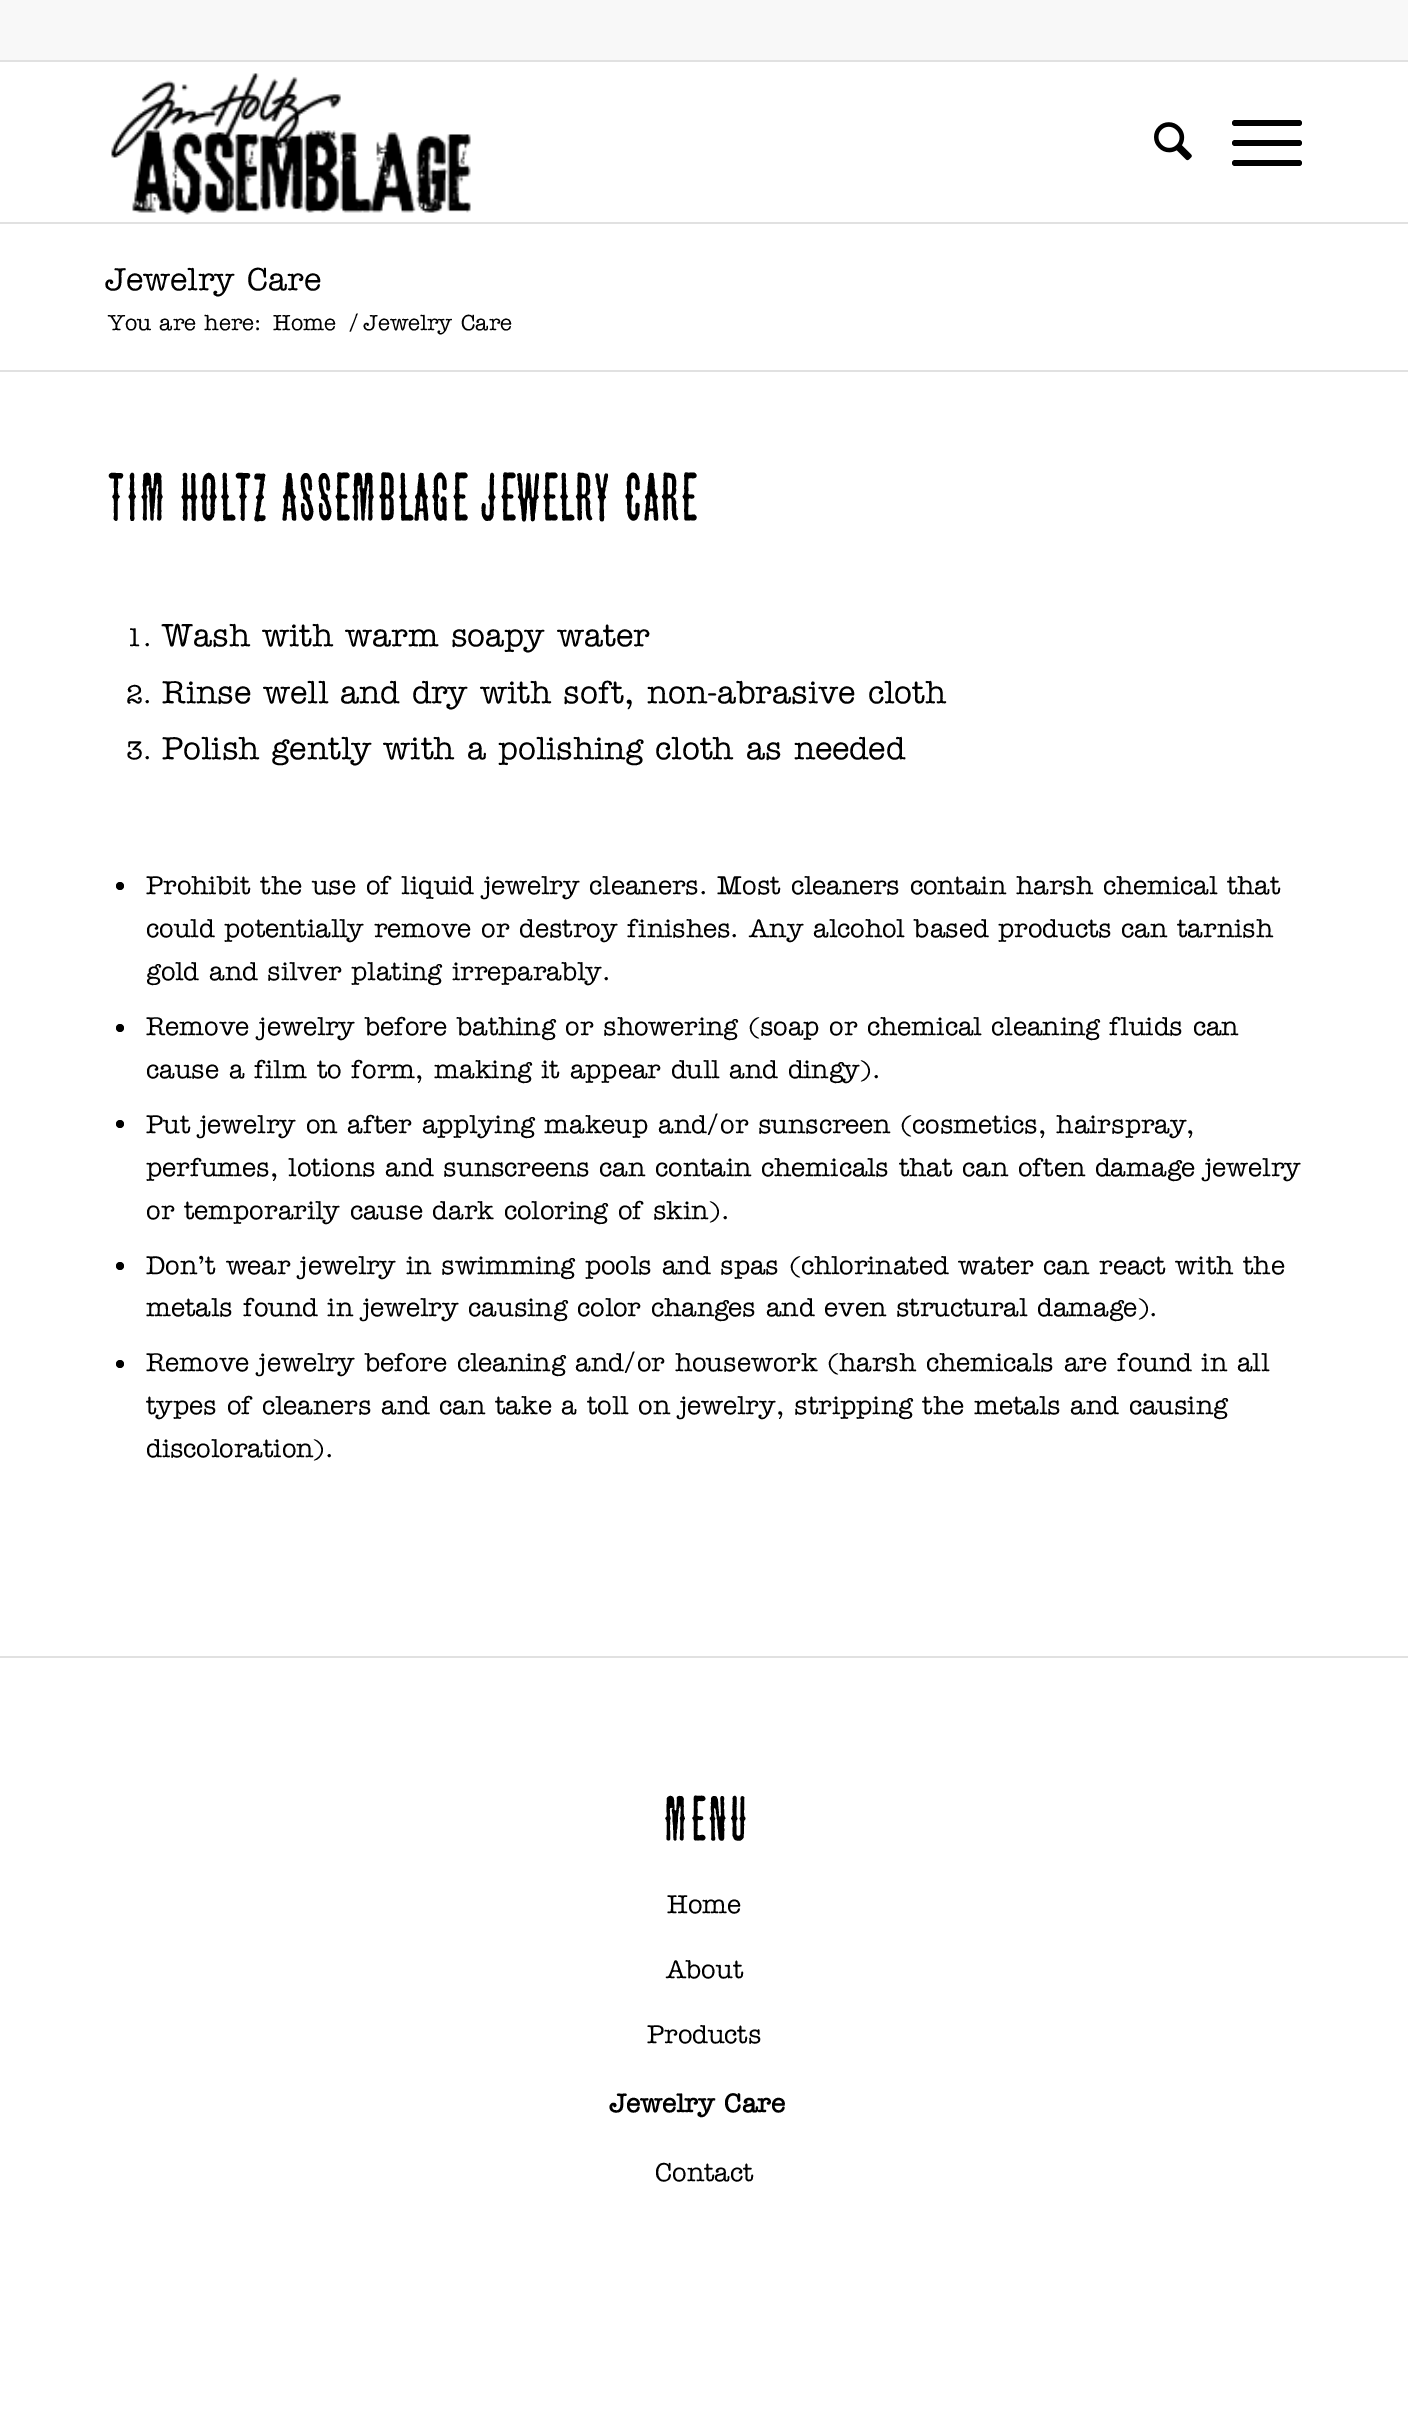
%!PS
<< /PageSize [1408 2416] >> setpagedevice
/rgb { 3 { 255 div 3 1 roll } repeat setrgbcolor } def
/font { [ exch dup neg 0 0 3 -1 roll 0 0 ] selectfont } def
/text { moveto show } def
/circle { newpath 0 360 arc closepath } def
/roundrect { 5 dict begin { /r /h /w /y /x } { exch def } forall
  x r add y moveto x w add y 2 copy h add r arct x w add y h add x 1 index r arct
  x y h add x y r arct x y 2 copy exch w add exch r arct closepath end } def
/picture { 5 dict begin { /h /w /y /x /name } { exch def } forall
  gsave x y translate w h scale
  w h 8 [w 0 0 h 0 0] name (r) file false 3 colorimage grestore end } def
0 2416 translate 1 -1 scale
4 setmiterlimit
255 255 255 rgb
0 0 1408 2416 rectfill
248 248 248 rgb
0 0 1408 60 rectfill
225 225 225 rgb
0 60 1408 2 rectfill
0 222 1408 2 rectfill
(img_01.rgb) 111 73 360 142 picture
(img_02.rgb) 1154 122 38 39 picture
0 0 0 rgb
1232 140 70 6 3 roundrect fill
1232 120 70 6 3 roundrect fill
1232 160 70 6 3 roundrect fill
225 225 225 rgb
0 370 1408 2 rectfill
0 0 0 rgb
120 886 4 circle fill
120 1028 4 circle fill
120 1124 4 circle fill
120 1266 4 circle fill
120 1364 4 circle fill
225 225 225 rgb
0 1656 1408 2 rectfill
/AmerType-Regular 32 font
0 0 0 rgb
(Jewelry Care) 106 290 text
/AmerType-Regular 22 font
(You are here:) 108 330 text
(Home) 273 330 text
(/) 348 330 text
(Jewelry Care) 364 330 text
/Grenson-Regular 60 font
(Tim Holtz Assemblage Jewelry Care) 106 520 text
/AmerType-Regular 26 font
(1.) 126 646 text
/AmerType-Regular 32 font
(Wash with warm soapy water) 162 646 text
/AmerType-Regular 26 font
(2.) 126 703 text
/AmerType-Regular 32 font
(Rinse well and dry with soft, non-abrasive cloth) 162 703 text
/AmerType-Regular 26 font
(3.) 126 759 text
/AmerType-Regular 32 font
(Polish gently with a polishing cloth as needed) 162 759 text
/AmerType-Regular 26 font
(Prohibit the use of liquid jewelry cleaners. Most cleaners contain harsh chemical that) 146 894 text
(could potentially remove or destroy finishes. Any alcohol based products can tarnish) 146 937 text
(gold and silver plating irreparably.) 146 980 text
(Remove jewelry before bathing or showering \(soap or chemical cleaning fluids can) 146 1035 text
(cause a film to form, making it appear dull and dingy\).) 146 1078 text
(Put jewelry on after applying makeup and/or sunscreen \(cosmetics, hairspray,) 146 1133 text
(perfumes, lotions and sunscreens can contain chemicals that can often damage jewelry) 146 1176 text
(or temporarily cause dark coloring of skin\).) 146 1219 text
(Don’t wear jewelry in swimming pools and spas \(chlorinated water can react with the) 146 1274 text
(metals found in jewelry causing color changes and even structural damage\).) 146 1316 text
(Remove jewelry before cleaning and/or housework \(harsh chemicals are found in all) 146 1371 text
(types of cleaners and can take a toll on jewelry, stripping the metals and causing) 146 1414 text
(discoloration\).) 146 1457 text
/Grenson-Regular 56 font
661 1840 moveto 2 0 (MENU) ashow
/AmerType-Regular 26 font
(Home) 667 1913 text
(About) 666 1978 text
(Products) 647 2043 text
/AmerType-Bold 26 font
(Jewelry Care) 610 2112 text
/AmerType-Regular 26 font
(Contact) 655 2181 text
showpage
